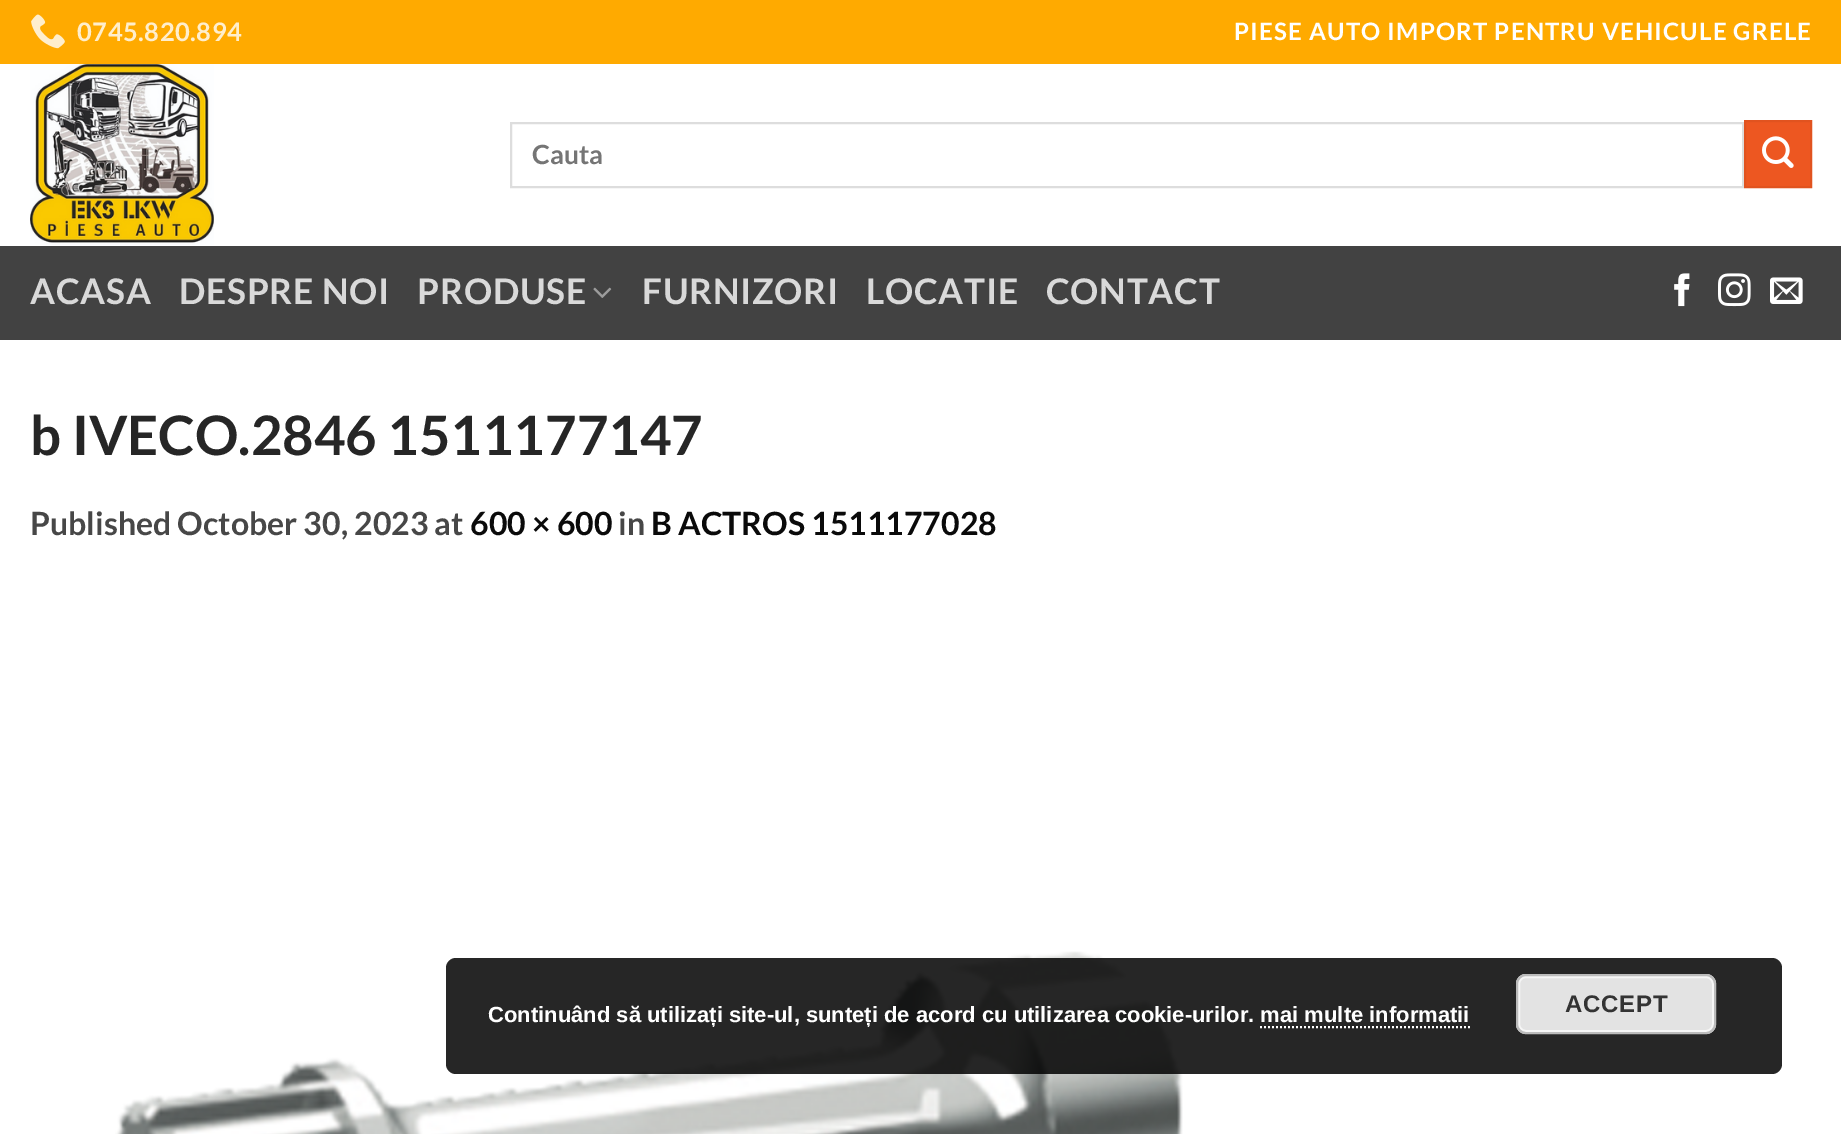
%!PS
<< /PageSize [1841 1134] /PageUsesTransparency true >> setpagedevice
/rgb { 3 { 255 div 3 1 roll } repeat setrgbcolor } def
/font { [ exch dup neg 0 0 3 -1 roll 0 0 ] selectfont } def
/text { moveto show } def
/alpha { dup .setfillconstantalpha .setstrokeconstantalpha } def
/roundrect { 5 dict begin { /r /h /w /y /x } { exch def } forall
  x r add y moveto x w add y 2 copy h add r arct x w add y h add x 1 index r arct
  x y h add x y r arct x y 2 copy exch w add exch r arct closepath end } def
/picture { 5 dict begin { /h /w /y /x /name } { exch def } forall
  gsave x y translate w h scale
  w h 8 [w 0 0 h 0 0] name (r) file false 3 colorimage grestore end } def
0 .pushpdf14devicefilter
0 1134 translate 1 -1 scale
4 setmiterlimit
255 255 255 rgb
0 0 1841 1134 rectfill
255 170 0 rgb
0 0 1841 64 rectfill
(img_01.rgb) 31 14 34 35 picture
(img_02.rgb) 30 64 184 181 picture
221 221 221 rgb
2 setlinewidth
511 123 1232 64 rectstroke
237 87 33 rgb
1745 121 moveto 66 0 rlineto 0 66 rlineto -66 0 rlineto closepath gsave fill grestore
225 83 31 rgb
stroke
(img_03.rgb) 1762 136 32 32 picture
66 66 66 rgb
0 246 1841 94 rectfill
(img_04.rgb) 593 287 19 11 picture
(img_05.rgb) 1674 273 16 34 picture
(img_06.rgb) 1718 273 33 34 picture
(img_07.rgb) 1770 277 33 27 picture
(img_08.rgb) 115 951 1068 183 picture
0.85 alpha
0 0 0 rgb
446 958 1336 116 10 roundrect fill
1 alpha
227 227 227 rgb
1516 974 200 60 10 roundrect fill
246 246 246 rgb
1519 977 194 54 7 roundrect stroke
187 187 187 rgb
1517 975 198 58 9 roundrect stroke
255 255 255 rgb
[2 2] 0 setdash
1260 1027 moveto 210 0 rlineto stroke
/Lato-Bold 25.5 font
255 238 204 rgb
77 41 moveto 0.5 0 (0745.820.894) ashow
/Lato-Bold 24 font
255 255 255 rgb
1234 40 moveto 1.2 0 (PIESE AUTO IMPORT PENTRU VEHICULE GRELE) ashow
/Lato-Bold 26.5 font
117 117 117 rgb
(Cauta) 532 164 text
/Lato-Bold 35.25 font
217 217 217 rgb
30 304 moveto 0.75 0 (ACASA) ashow
179 304 moveto 0.75 0 (DESPRE NOI) ashow
417 304 moveto 0.75 0 (PRODUSE) ashow
642 304 moveto 0.75 0 (FURNIZORI) ashow
866 304 moveto 0.75 0 (LOCATIE) ashow
1046 304 moveto 0.75 0 (CONTACT) ashow
/Lato-Bold 54.4 font
38 38 38 rgb
(b IVECO.2846 1511177147) 30 455 text
/Lato-Bold 32 font
71 71 71 rgb
(Published October 30, 2023 at) 30 535 text
10 10 10 rgb
(600 × 600) 470 535 text
71 71 71 rgb
(in) 618 535 text
10 10 10 rgb
(B ACTROS 1511177028) 651 535 text
/LiberationSans-Bold 22 font
255 255 255 rgb
(Continuând să utilizați site-ul, sunteți de acord cu utilizarea cookie-urilor. mai multe informatii) 488 1022 text
/LiberationSans-Bold 24 font
51 51 51 rgb
1565 1012 moveto 0.75 0 (ACCEPT) ashow
.poppdf14devicefilter showpage
